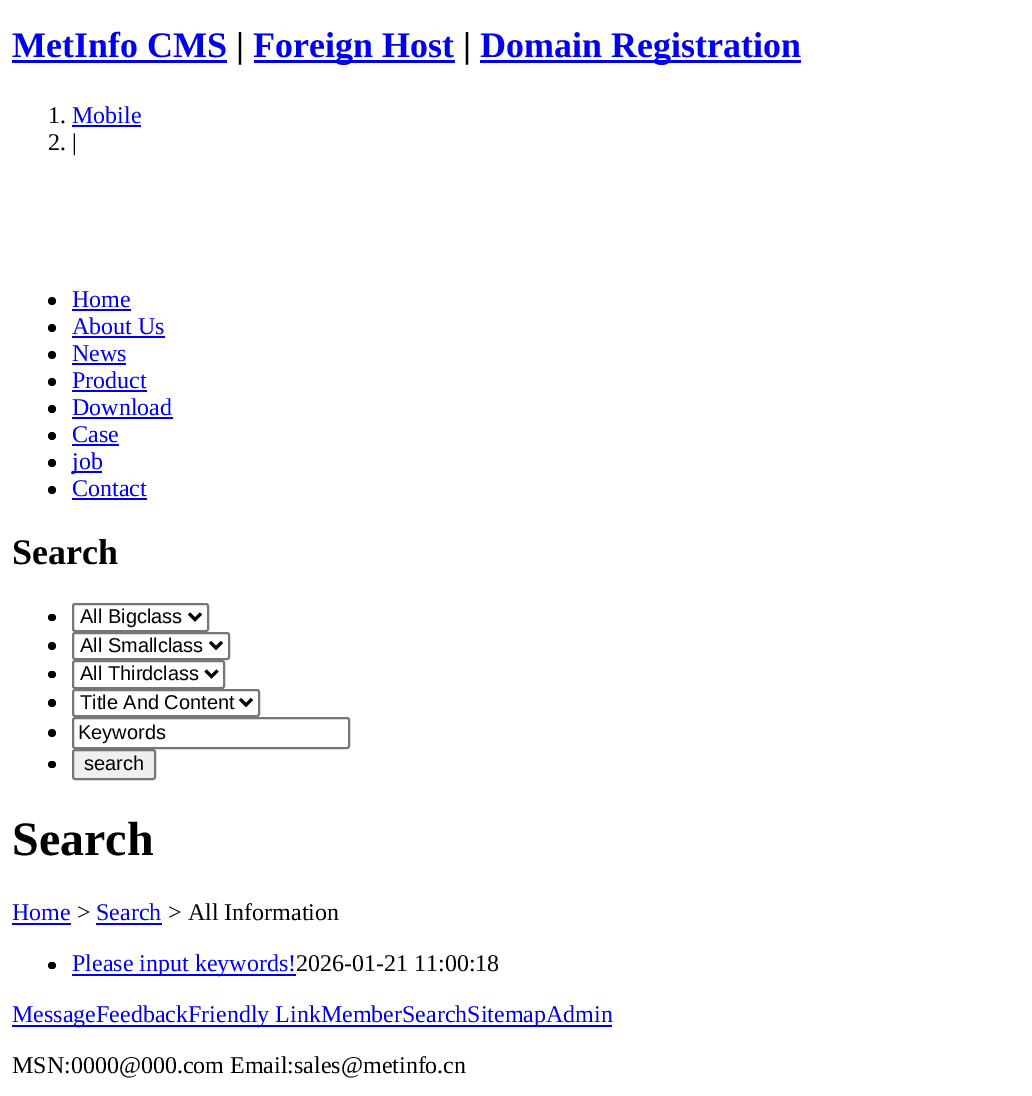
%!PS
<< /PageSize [1032 1096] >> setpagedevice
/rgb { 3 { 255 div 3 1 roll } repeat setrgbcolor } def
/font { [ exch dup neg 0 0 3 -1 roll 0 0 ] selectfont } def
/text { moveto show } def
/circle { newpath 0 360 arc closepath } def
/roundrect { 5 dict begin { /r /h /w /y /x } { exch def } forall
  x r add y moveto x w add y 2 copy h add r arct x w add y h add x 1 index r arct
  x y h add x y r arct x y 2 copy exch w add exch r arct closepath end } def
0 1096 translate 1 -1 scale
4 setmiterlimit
255 255 255 rgb
0 0 1032 1096 rectfill
0 0 238 rgb
12 60 215 3 rectfill
254 60 201 3 rectfill
480 60 321 3 rectfill
72 125 69 2 rectfill
0 0 0 rgb
52 301 4 circle fill
0 0 238 rgb
72 309 59 2 rectfill
0 0 0 rgb
52 328 4 circle fill
0 0 238 rgb
72 336 93 2 rectfill
0 0 0 rgb
52 355 4 circle fill
0 0 238 rgb
72 363 54 2 rectfill
0 0 0 rgb
52 382 4 circle fill
0 0 238 rgb
72 390 75 2 rectfill
0 0 0 rgb
52 409 4 circle fill
0 0 238 rgb
72 417 101 2 rectfill
0 0 0 rgb
52 436 4 circle fill
0 0 238 rgb
72 444 47 2 rectfill
0 0 0 rgb
52 463 4 circle fill
0 0 238 rgb
72 471 30 2 rectfill
0 0 0 rgb
52 490 4 circle fill
0 0 238 rgb
72 498 75 2 rectfill
0 0 0 rgb
48 614 8 7 3.5 roundrect fill
118 118 118 rgb
2 setlinewidth
73 604 135 27 2 roundrect stroke
0 0 0 rgb
3 setlinewidth
189 613.5 moveto 6 6 rlineto 6 -6 rlineto stroke
52 646 4 circle fill
118 118 118 rgb
2 setlinewidth
73 633 156 26 2 roundrect stroke
0 0 0 rgb
3 setlinewidth
210 642 moveto 6 6 rlineto 6 -6 rlineto stroke
48 671 8 7 3.5 roundrect fill
118 118 118 rgb
2 setlinewidth
73 661 151 27 2 roundrect stroke
0 0 0 rgb
3 setlinewidth
205.5 670.5 moveto 6 6 rlineto 6 -6 rlineto stroke
52 703 4 circle fill
118 118 118 rgb
2 setlinewidth
73 690 186 26 2 roundrect stroke
0 0 0 rgb
3 setlinewidth
240 699 moveto 6 6 rlineto 6 -6 rlineto stroke
52 733 4 circle fill
118 118 118 rgb
2 setlinewidth
73 718 276 30 2 roundrect stroke
0 0 0 rgb
48 761 8 7 3.5 roundrect fill
239 239 239 rgb
73 750 82 29 2 roundrect gsave fill grestore
118 118 118 rgb
stroke
0 0 238 rgb
12 923 59 2 rectfill
96 923 66 2 rectfill
0 0 0 rgb
48 962 8 7 3.5 roundrect fill
0 0 238 rgb
72 974 224 2 rectfill
12 1025 600 2 rectfill
/LiberationSerif-Bold 36 font
(MetInfo CMS) 12 57 text
0 0 0 rgb
(|) 236 57 text
0 0 238 rgb
(Foreign Host) 253 57 text
0 0 0 rgb
(|) 463 57 text
0 0 238 rgb
(Domain Registration) 480 57 text
/LiberationSerif-Regular 24 font
0 0 0 rgb
(1.) 48 123 text
0 0 238 rgb
(Mobile) 72 123 text
0 0 0 rgb
(2. |) 48 150 text
0 0 238 rgb
(Home) 72 307 text
(About Us) 72 334 text
(News) 72 361 text
(Product) 72 388 text
(Download) 72 415 text
(Case) 72 442 text
(job) 72 469 text
(Contact) 72 496 text
/LiberationSerif-Bold 36 font
0 0 0 rgb
(Search) 12 564 text
/LiberationSans-Regular 20 font
(All Bigclass) 80 623 text
(All Smallclass) 80 652 text
(All Thirdclass) 80 680 text
(Title And Content) 80 709 text
(Keywords) 78 739 text
(search) 84 770 text
/LiberationSerif-Bold 48 font
(Search) 12 855 text
/LiberationSerif-Regular 24 font
0 0 238 rgb
(Home) 12 920 text
0 0 0 rgb
(>) 77 920 text
0 0 238 rgb
(Search) 96 920 text
0 0 0 rgb
(> All Information) 168 920 text
0 0 238 rgb
(Please input keywords!) 72 971 text
0 0 0 rgb
(2026-01-21 11:00:18) 296 971 text
0 0 238 rgb
(MessageFeedbackFriendly LinkMemberSearchSitemapAdmin) 12 1022 text
0 0 0 rgb
(MSN:0000@000.com Email:sales@metinfo.cn) 12 1073 text
showpage
